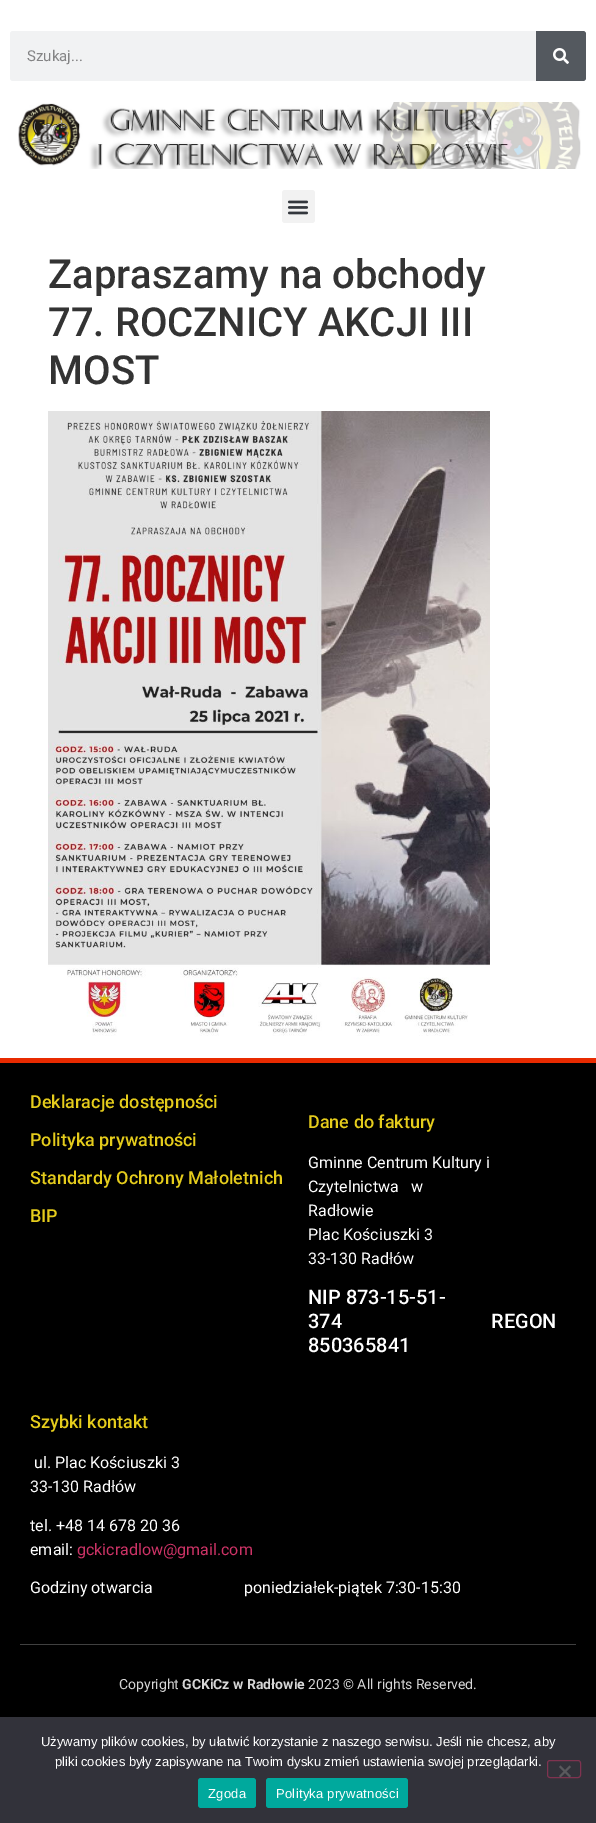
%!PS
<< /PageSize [596 1823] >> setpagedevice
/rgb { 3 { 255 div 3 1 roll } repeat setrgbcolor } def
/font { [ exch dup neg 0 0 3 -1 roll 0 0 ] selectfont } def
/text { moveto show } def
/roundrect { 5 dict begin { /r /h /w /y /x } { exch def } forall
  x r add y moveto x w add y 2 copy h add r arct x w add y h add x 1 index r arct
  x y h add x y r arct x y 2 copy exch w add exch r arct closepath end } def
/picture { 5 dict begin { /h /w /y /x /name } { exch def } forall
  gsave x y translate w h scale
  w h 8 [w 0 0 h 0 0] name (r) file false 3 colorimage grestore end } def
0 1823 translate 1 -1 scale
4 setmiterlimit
255 255 255 rgb
0 0 596 1823 rectfill
241 242 243 rgb
10 31 576 50 3 roundrect fill
84 89 95 rgb
536 31 moveto 47 0 rlineto 1.5 0 3 1.5 3 3 rcurveto 0 44 rlineto 0 1.5 -1.5 3 -3 3 rcurveto -47 0 rlineto closepath fill
(img_01.rgb) 553 48 16 16 picture
(img_02.rgb) 18 102 563 67 picture
242 242 242 rgb
282 190 33 33 3 roundrect fill
(img_03.rgb) 287 200 22 15 picture
(img_04.rgb) 48 411 442 625 picture
0 0 0 rgb
0 1063 596 654 rectfill
232 42 0 rgb
0 1058 596 5 rectfill
64 64 64 rgb
20 1644 556 1 rectfill
50 50 58 rgb
0 1717 596 106 rectfill
127 51 80 rgb
547.5 1760.5 33 17 2.5 roundrect stroke
89 89 93 rgb
569.5 1765.5 moveto 1.5 1.5 rlineto -10.5 10.5 rlineto -1.5 -1.5 rlineto closepath fill
559 1767 moveto 1.5 -1.5 rlineto 10.5 10.5 rlineto -1.5 1.5 rlineto closepath fill
0 169 157 rgb
198 1778 58 30 3 roundrect fill
266 1778 142 30 3 roundrect fill
/Roboto-Regular 15 font
132 132 133 rgb
(Szukaj...) 27 61 text
/Roboto-Medium 40 font
51 51 51 rgb
(Zapraszamy na obchody) 48 288 text
(77. ROCZNICY AKCJI III) 48 336 text
(MOST) 48 384 text
/Roboto-Medium 18 font
229 204 28 rgb
(Deklaracje dostępności) 30 1108 text
(Polityka prywatności) 30 1146 text
(Standardy Ochrony Małoletnich) 30 1184 text
(BIP) 30 1222 text
(Dane do faktury) 308 1128 text
/Roboto-Regular 16 font
255 255 255 rgb
(Gminne Centrum Kultury i) 308 1168 text
(Czytelnictwa   w) 308 1192 text
(Radłowie) 308 1216 text
(Plac Kościuszki 3) 308 1240 text
(33-130 Radłów) 308 1264 text
/Roboto-Medium 20 font
(NIP 873-15-51-) 308 1304 text
(374                              REGON) 308 1328 text
(850365841) 308 1352 text
/Roboto-Medium 18 font
229 204 28 rgb
(Szybki kontakt) 30 1428 text
/Roboto-Regular 16 font
255 255 255 rgb
(ul. Plac Kościuszki 3) 34 1468 text
(33-130 Radłów) 30 1492 text
(tel. +48 14 678 20 36) 30 1531 text
(email:) 30 1555 text
204 51 102 rgb
(gckicradlow@gmail.com) 77 1555 text
255 255 255 rgb
(Godziny otwarcia                       poniedziałek-piątek 7:30-15:30) 30 1593 text
/Roboto-Regular 14 font
214 214 214 rgb
(Copyright) 119 1689 text
/Roboto-Bold 14 font
(GCKiCz w Radłowie) 182 1689 text
/Roboto-Regular 14 font
(2023 © All rights Reserved.) 308 1689 text
/LiberationSans-Regular 13 font
255 255 255 rgb
(Używamy plików cookies, by ułatwić korzystanie z naszego serwisu. Jeśli nie chcesz, aby) 41 1746 text
(pliki cookies były zapisywane na Twoim dysku zmień ustawienia swojej przeglądarki.) 55 1766 text
208 1798 moveto 0.25 0 (Zgoda) ashow
276 1798 moveto 0.25 0 (Polityka prywatności) ashow
showpage
